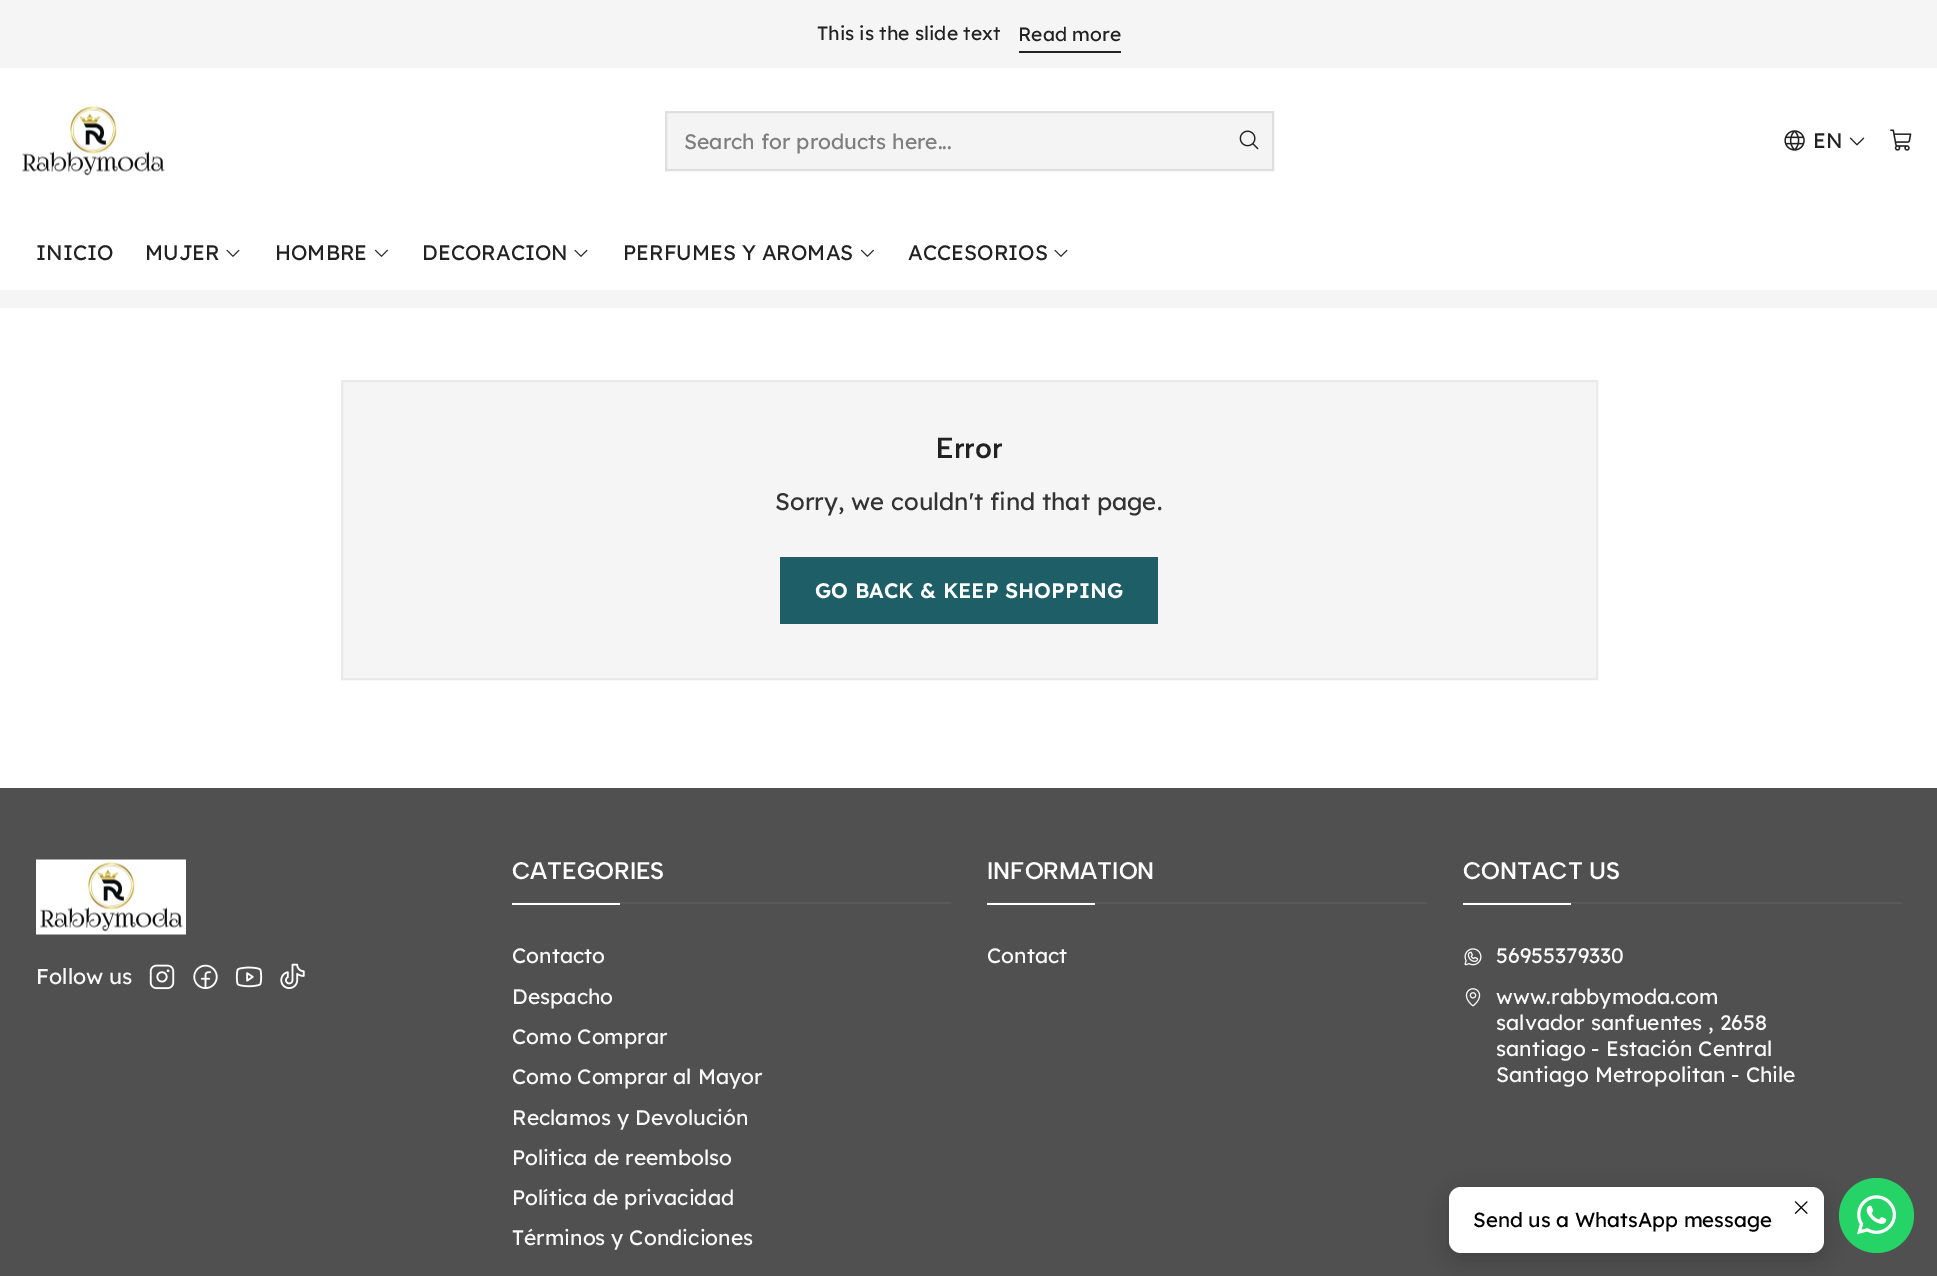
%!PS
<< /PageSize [1937 1276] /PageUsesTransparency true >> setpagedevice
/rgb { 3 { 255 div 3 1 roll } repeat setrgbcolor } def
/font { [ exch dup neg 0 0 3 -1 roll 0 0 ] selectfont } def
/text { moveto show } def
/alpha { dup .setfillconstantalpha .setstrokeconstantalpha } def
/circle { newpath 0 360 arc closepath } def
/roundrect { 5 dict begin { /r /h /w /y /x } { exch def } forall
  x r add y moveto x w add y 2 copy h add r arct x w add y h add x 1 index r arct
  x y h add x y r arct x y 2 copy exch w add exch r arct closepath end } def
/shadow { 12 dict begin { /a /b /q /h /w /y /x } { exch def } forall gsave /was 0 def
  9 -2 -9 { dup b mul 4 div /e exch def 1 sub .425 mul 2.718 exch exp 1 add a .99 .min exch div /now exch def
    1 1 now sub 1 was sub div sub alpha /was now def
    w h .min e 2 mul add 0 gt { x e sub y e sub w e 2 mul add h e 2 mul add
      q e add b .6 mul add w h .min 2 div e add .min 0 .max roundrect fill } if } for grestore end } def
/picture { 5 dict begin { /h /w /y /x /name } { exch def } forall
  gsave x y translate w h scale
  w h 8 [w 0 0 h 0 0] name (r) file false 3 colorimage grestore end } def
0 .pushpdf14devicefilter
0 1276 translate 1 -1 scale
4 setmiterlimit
255 255 255 rgb
0 0 1937 1276 rectfill
245 245 245 rgb
0 0 1937 68 rectfill
34 34 34 rgb
1019 51 102 2 rectfill
(img_01.rgb) 22 104 143 72 picture
244 244 244 rgb
666 112 moveto 607 0 rlineto 0 58 rlineto -607 0 rlineto closepath gsave fill grestore
223 223 223 rgb
2 setlinewidth
stroke
(img_02.rgb) 1239 130 20 20 picture
(img_03.rgb) 1784 130 21 21 picture
(img_04.rgb) 1849 137 16 9 picture
(img_05.rgb) 1890 129 22 22 picture
(img_06.rgb) 226 249 14 8 picture
(img_07.rgb) 375 249 13 8 picture
(img_06.rgb) 574 249 14 8 picture
(img_07.rgb) 861 249 13 8 picture
(img_06.rgb) 1054 249 14 8 picture
245 245 245 rgb
0 290 1937 18 rectfill
342 381 moveto 1255 0 rlineto 0 298 rlineto -1255 0 rlineto closepath gsave fill grestore
234 234 234 rgb
stroke
30 95 103 rgb
780 557 378 67 rectfill
80 80 80 rgb
0 788 1937 488 rectfill
(img_08.rgb) 36 859 150 76 picture
(img_09.rgb) 149 964 26 26 picture
(img_10.rgb) 193 964 25 26 picture
(img_11.rgb) 235 966 28 22 picture
(img_12.rgb) 280 963 25 27 picture
89 89 89 rgb
512 902 439 2 rectfill
255 255 255 rgb
512 903 108 2 rectfill
89 89 89 rgb
987 902 440 2 rectfill
255 255 255 rgb
987 903 108 2 rectfill
89 89 89 rgb
1463 902 439 2 rectfill
255 255 255 rgb
1463 903 108 2 rectfill
(img_13.rgb) 1464 948 18 18 picture
(img_14.rgb) 1465 988 16 19 picture
0 0 0 rgb
1449 1193 375 66 12 11 0.2 shadow
255 255 255 rgb
1449 1187 375 66 12 roundrect fill
(img_15.rgb) 1794 1201 14 13 picture
37 211 102 rgb
1876.5 1215.5 37.5 circle fill
(img_16.rgb) 1857 1195 39 40 picture
/Lexend-Regular 19.25 font
34 34 34 rgb
(This is the slide text) 817 40 text
(Read more) 1018 41 text
/Lexend-Regular 21 font
126 126 126 rgb
(Search for products here...) 684 149 text
34 34 34 rgb
(EN) 1813 148 text
(INICIO) 36 260 text
(MUJER) 145 260 text
(HOMBRE) 275 260 text
(DECORACION) 422 260 text
(PERFUMES Y AROMAS) 623 260 text
(ACCESORIOS) 908 260 text
/AlbertSans-SemiBold 29 font
(Error) 936 458 text
/Lexend-Regular 24 font
51 51 51 rgb
(Sorry, we couldn't find that page.) 775 510 text
/Lexend-SemiBold 21 font
255 255 255 rgb
(GO BACK & KEEP SHOPPING) 815 598 text
/Lexend-Regular 21.5 font
249 249 249 rgb
(Follow us) 36 984 text
/AlbertSans-SemiBold 24 font
255 255 255 rgb
(CATEGORIES) 512 879 text
/Lexend-Regular 21 font
249 249 249 rgb
(Contacto) 512 963 text
(Despacho) 512 1004 text
(Como Comprar) 512 1044 text
(Como Comprar al Mayor) 512 1084 text
(Reclamos y Devolución) 512 1125 text
(Politica de reembolso) 512 1165 text
(Política de privacidad) 512 1205 text
(Términos y Condiciones) 512 1245 text
/AlbertSans-SemiBold 24 font
255 255 255 rgb
(INFORMATION) 987 879 text
/Lexend-Regular 21 font
249 249 249 rgb
(Contact) 987 963 text
/AlbertSans-SemiBold 24 font
255 255 255 rgb
(CONTACT US) 1463 879 text
/Lexend-Regular 21 font
249 249 249 rgb
(56955379330) 1496 963 text
(www.rabbymoda.com) 1496 1004 text
(salvador sanfuentes , 2658) 1496 1030 text
(santiago - Estación Central) 1496 1056 text
(Santiago Metropolitan - Chile) 1496 1082 text
/Lexend-Regular 20.4 font
0 0 0 rgb
(Send us a WhatsApp message) 1473 1227 text
.poppdf14devicefilter showpage
